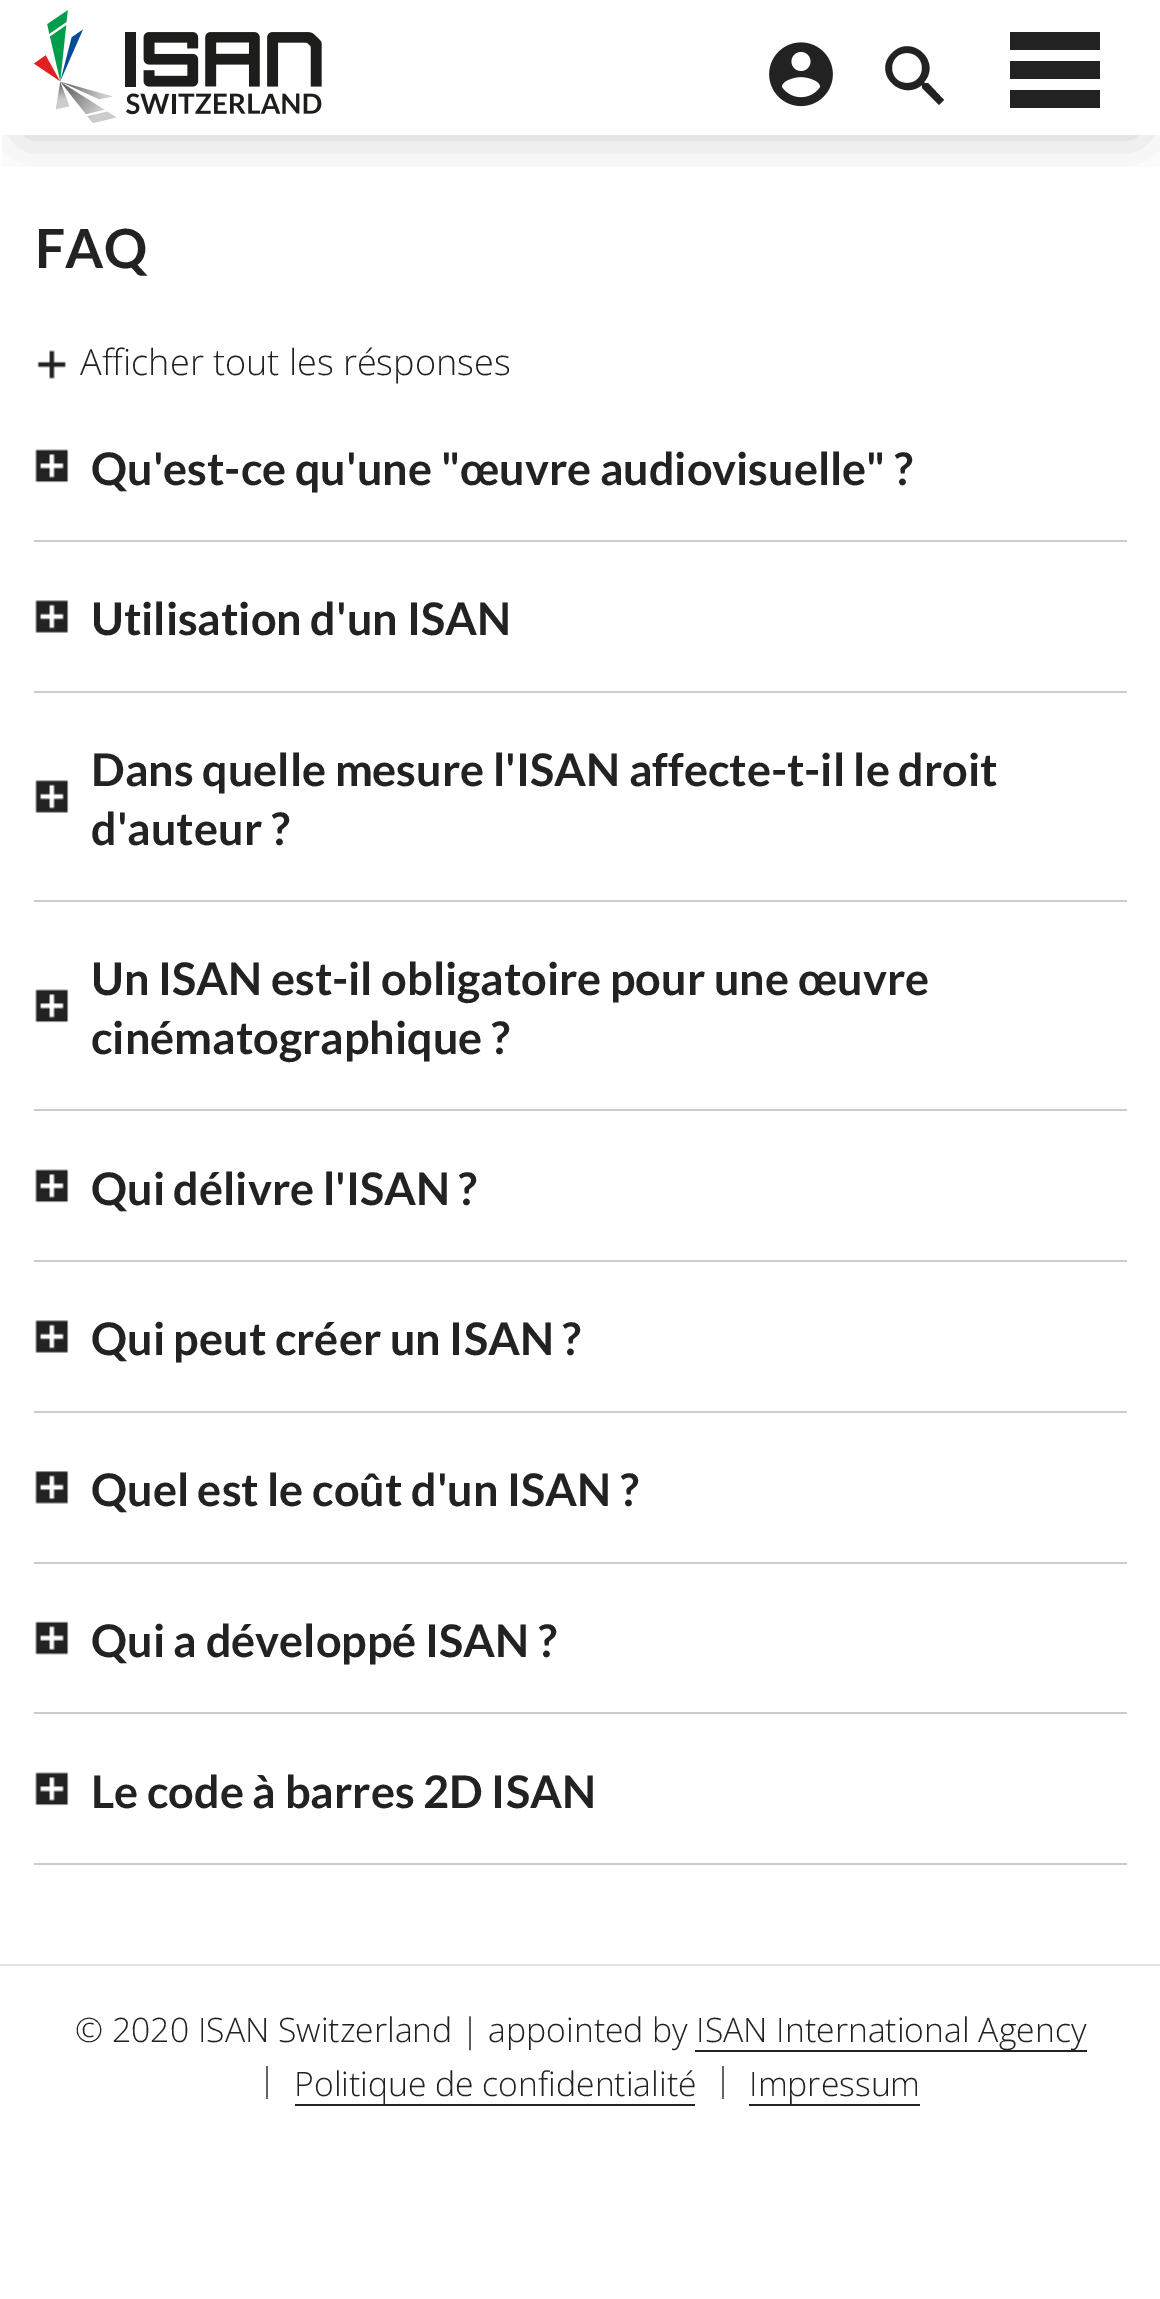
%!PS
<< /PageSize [1160 2299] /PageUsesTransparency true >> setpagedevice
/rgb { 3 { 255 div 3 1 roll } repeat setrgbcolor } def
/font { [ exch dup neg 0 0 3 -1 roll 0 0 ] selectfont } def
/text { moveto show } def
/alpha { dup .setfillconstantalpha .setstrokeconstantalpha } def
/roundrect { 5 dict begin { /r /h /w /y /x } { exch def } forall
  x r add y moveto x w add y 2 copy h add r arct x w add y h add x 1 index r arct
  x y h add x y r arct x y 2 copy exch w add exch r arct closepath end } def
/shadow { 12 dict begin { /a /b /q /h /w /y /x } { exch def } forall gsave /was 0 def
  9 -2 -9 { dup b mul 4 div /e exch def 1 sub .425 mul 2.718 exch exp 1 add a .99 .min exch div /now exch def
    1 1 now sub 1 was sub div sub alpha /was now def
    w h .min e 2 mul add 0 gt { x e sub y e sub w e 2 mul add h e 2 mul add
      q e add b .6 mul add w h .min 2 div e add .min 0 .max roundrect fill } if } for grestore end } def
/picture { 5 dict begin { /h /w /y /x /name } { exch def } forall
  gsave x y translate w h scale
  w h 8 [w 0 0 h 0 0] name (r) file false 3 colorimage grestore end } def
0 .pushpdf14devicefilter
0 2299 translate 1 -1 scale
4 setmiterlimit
255 255 255 rgb
0 0 1160 2299 rectfill
gsave
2 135 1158 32 rectclip
0 0 0 rgb
23 45 1116 90 0 25 0.2 shadow
grestore
34 34 34 rgb
1010 61 90 18 rectfill
1010 32 90 18 rectfill
1010 90 90 18 rectfill
(img_01.rgb) 34 10 288 113 picture
(img_02.rgb) 769 42 64 65 picture
928 83 moveto -3 0 rlineto -1 -1 rlineto 18 -20 -12 -49 -32 -29 rcurveto -20 20 9 49 30 32 rcurveto 0 1 rlineto 0 2 rlineto 17 17 rlineto 5 -5 rlineto closepath 907 83 moveto -20 0 -20 -30 0 -30 rcurveto 20 0 20 30 0 30 rcurveto closepath fill
(img_03.rgb) 37 350 29 29 picture
204 204 204 rgb
34 540 1093 2 rectfill
(img_04.rgb) 35 449 34 34 picture
34 691 1093 2 rectfill
(img_05.rgb) 35 600 34 33 picture
34 900 1093 2 rectfill
(img_05.rgb) 35 780 34 33 picture
34 1109 1093 2 rectfill
(img_04.rgb) 35 989 34 34 picture
34 1260 1093 2 rectfill
(img_04.rgb) 35 1169 34 34 picture
34 1411 1093 2 rectfill
(img_05.rgb) 35 1320 34 33 picture
34 1562 1093 2 rectfill
(img_06.rgb) 35 1471 34 33 picture
34 1712 1093 2 rectfill
(img_07.rgb) 35 1621 34 34 picture
34 1863 1093 2 rectfill
(img_04.rgb) 35 1772 34 34 picture
225 225 225 rgb
0 1964 1160 2 rectfill
34 34 34 rgb
695 2050 392 2 rectfill
102 102 102 rgb
266 2066 2 33 rectfill
34 34 34 rgb
295 2104 400 2 rectfill
102 102 102 rgb
722 2066 2 33 rectfill
34 34 34 rgb
749 2104 171 2 rectfill
/Lato-Bold 54 font
(FAQ) 35 268 text
/OpenSans-Light 36 font
(Afficher tout les résponses) 80 375 text
/Lato-Bold 45 font
(Qu'est-ce qu'une "œuvre audiovisuelle" ?) 91 485 text
(Utilisation d'un ISAN) 91 635 text
(Dans quelle mesure l'ISAN affecte-t-il le droit) 91 786 text
(d'auteur ?) 91 845 text
(Un ISAN est-il obligatoire pour une œuvre) 91 995 text
(cinématographique ?) 91 1054 text
(Qui délivre l'ISAN ?) 91 1205 text
(Qui peut créer un ISAN ?) 91 1355 text
(Quel est le coût d'un ISAN ?) 91 1506 text
(Qui a développé ISAN ?) 91 1657 text
(Le code à barres 2D ISAN) 91 1808 text
/OpenSans-Light 33.75 font
(© 2020 ISAN Switzerland | appointed by) 75 2042 text
(ISAN International Agency) 696 2042 text
(Politique de confidentialité) 294 2096 text
(Impressum) 749 2096 text
.poppdf14devicefilter showpage
